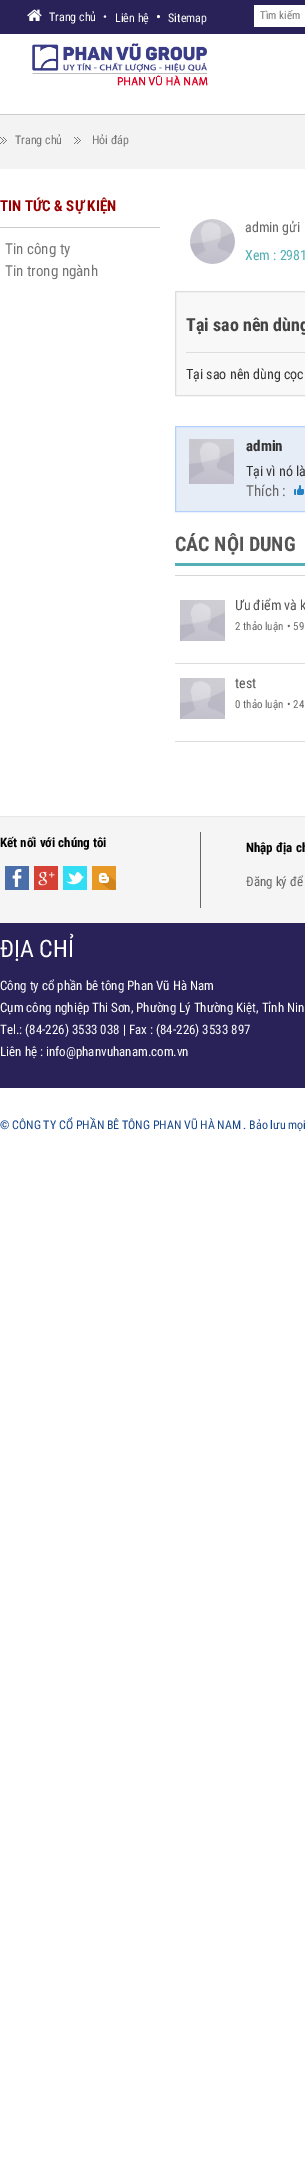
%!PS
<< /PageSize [305 2182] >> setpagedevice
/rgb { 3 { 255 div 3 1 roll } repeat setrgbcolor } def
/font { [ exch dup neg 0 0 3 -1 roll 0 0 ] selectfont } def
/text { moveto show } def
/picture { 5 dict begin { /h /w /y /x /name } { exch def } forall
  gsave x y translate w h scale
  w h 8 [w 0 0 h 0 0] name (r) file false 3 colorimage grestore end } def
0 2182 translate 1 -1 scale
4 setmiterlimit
255 255 255 rgb
0 0 305 2182 rectfill
41 34 88 rgb
0 0 305 34 rectfill
(img_01.rgb) 27 9 15 12 picture
255 255 255 rgb
254 5 51 22 rectfill
(img_02.rgb) 32 43 176 43 picture
204 204 204 rgb
0 114 305 1 rectfill
243 243 243 rgb
0 115 305 54 rectfill
(img_03.rgb) 0 137 7 7 picture
(img_03.rgb) 74 137 7 7 picture
204 204 204 rgb
0 227 160 1 rectfill
(img_04.rgb) 190 219 45 45 picture
248 248 248 rgb
175.5 291.5 moveto 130 0 rlineto 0 104 rlineto -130 0 rlineto closepath gsave fill grestore
221 221 221 rgb
stroke
186 352 119 1 rectfill
230 237 247 rgb
175.5 426.5 moveto 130 0 rlineto 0 85 rlineto -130 0 rlineto closepath gsave fill grestore
177 208 252 rgb
stroke
(img_05.rgb) 189 439 45 45 picture
(img_06.rgb) 294 485 10 10 picture
215 215 215 rgb
175 575 130 1 rectfill
84 175 180 rgb
175 563 130 3 rectfill
221 221 221 rgb
175 663 130 1 rectfill
(img_07.rgb) 180 600 45 41 picture
175 741 130 1 rectfill
(img_07.rgb) 180 678 45 41 picture
231 231 231 rgb
0 816 305 1 rectfill
245 245 245 rgb
0 817 305 106 rectfill
102 102 102 rgb
200 832 1 76 rectfill
(img_08.rgb) 5 866 24 24 picture
(img_09.rgb) 34 866 24 24 picture
(img_10.rgb) 63 866 24 24 picture
(img_11.rgb) 92 866 24 24 picture
41 34 88 rgb
0 923 305 165 rectfill
/RobotoCondensed-Regular 12 font
255 255 255 rgb
(Trang chủ) 49 21 text
(•) 103 21 text
(Liên hệ) 115 22 text
/RobotoCondensed-Regular 15 font
(•) 156 22 text
/RobotoCondensed-Regular 12 font
(Sitemap) 168 22 text
/RobotoCondensed-Regular 11 font
116 116 116 rgb
(Tìm kiếm) 260 19 text
/RobotoCondensed-Regular 12 font
(Trang chủ) 15 144 text
(Hỏi đáp) 92 144 text
/RobotoCondensed-Bold 15 font
153 0 0 rgb
(TIN TỨC & SỰ KIỆN) 0 211 text
/RobotoCondensed-Regular 15 font
116 116 116 rgb
(Tin công ty) 5 254 text
(Tin trong ngành) 5 276 text
/RobotoCondensed-Regular 14 font
102 102 102 rgb
(admin gửi) 245 232 text
84 175 180 rgb
(Xem : 2981) 245 260 text
/RobotoCondensed-Bold 18 font
68 68 68 rgb
(Tại sao nên dùng) 186 331 text
/RobotoCondensed-Regular 14 font
51 51 51 rgb
(Tại sao nên dùng cọc) 186 379 text
/RobotoCondensed-Bold 15 font
(admin) 246 451 text
/RobotoCondensed-Regular 14 font
(Tại vì nó là) 246 476 text
/RobotoCondensed-Regular 15 font
102 102 102 rgb
(Thích :) 246 496 text
/RobotoCondensed-Bold 20 font
85 85 85 rgb
(CÁC NỘI DUNG) 175 551 text
/RobotoCondensed-Regular 14 font
(Ưu điểm và k) 235 610 text
/RobotoCondensed-Regular 11 font
102 102 102 rgb
(2 thảo luận) 235 630 text
(• 59) 287 630 text
/RobotoCondensed-Regular 14 font
85 85 85 rgb
(test) 235 688 text
/RobotoCondensed-Regular 11 font
102 102 102 rgb
(0 thảo luận) 235 708 text
(• 24) 287 708 text
/RobotoCondensed-Bold 13 font
0 0 0 rgb
(Kết nối với chúng tôi) 0 847 text
(Nhập địa ch) 246 852 text
/RobotoCondensed-Regular 13 font
102 102 102 rgb
(Đăng ký để) 246 886 text
/RobotoCondensed-Regular 24 font
255 255 255 rgb
(ĐỊA CHỈ) 0 957 text
/RobotoCondensed-Regular 13 font
(Công ty cổ phần bê tông Phan Vũ Hà Nam) 0 990 text
(Cụm công nghiệp Thi Sơn, Phường Lý Thường Kiệt, Tỉnh Nin) 0 1012 text
(Tel.: \(84-226\) 3533 038 | Fax : \(84-226\) 3533 897) 0 1034 text
(Liên hệ : info@phanvuhanam.com.vn) 0 1056 text
/RobotoCondensed-Regular 12 font
20 69 140 rgb
(© CÔNG TY CỔ PHẦN BÊ TÔNG PHAN VŨ HÀ NAM . Bảo lưu mọi) 0 1129 text
showpage
